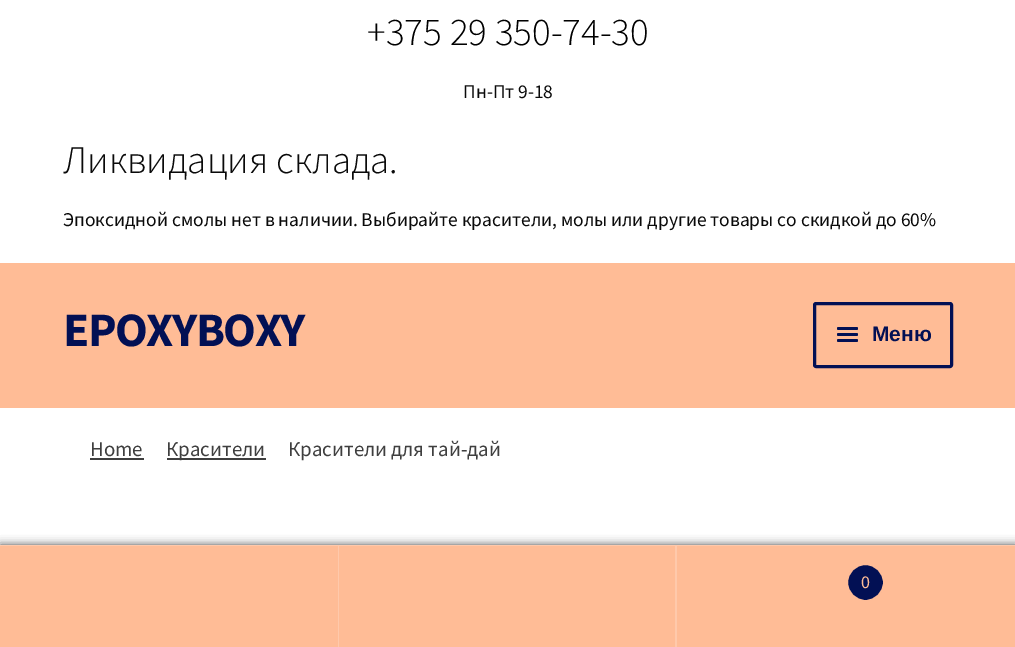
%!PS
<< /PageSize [1015 647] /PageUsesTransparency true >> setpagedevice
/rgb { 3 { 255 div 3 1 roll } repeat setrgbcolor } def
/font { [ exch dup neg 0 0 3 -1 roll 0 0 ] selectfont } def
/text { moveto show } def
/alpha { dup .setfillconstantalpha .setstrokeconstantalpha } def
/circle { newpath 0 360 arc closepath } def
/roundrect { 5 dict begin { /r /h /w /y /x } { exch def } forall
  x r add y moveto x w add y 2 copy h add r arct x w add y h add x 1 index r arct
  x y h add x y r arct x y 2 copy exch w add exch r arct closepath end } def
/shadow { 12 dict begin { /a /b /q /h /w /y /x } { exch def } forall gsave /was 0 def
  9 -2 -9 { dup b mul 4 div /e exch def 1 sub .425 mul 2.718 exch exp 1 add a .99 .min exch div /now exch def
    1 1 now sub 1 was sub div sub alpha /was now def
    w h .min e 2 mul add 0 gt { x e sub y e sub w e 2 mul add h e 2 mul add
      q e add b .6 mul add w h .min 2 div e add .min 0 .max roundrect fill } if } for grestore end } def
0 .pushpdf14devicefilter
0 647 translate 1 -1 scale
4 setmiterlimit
255 255 255 rgb
0 0 1015 647 rectfill
255 188 150 rgb
0 263 1015 145 rectfill
2 16 84 rgb
3 setlinewidth
814.5 303.5 137 63 1.5 roundrect stroke
837 327 21 3 1.5 roundrect fill
837 333 21 3 1.5 roundrect fill
837 339 21 3 1.5 roundrect fill
63 63 63 rgb
90 458 54 2 rectfill
167 458 99 2 rectfill
0 0 0 rgb
0 545 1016 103 0 4.5 0.7 shadow
255 201 171 rgb
0 545 1015 1 rectfill
255 188 150 rgb
0 546 338 101 rectfill
255 201 171 rgb
338 546 1 101 rectfill
255 188 150 rgb
339 546 336 101 rectfill
255 201 171 rgb
675 546 2 101 rectfill
255 188 150 rgb
677 546 338 101 rectfill
2 16 84 rgb
865.5 582.5 18.5 circle gsave fill grestore
255 188 150 rgb
2 setlinewidth
stroke
/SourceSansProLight-Light 39 font
0 0 0 rgb
(+375 29 350-74-30) 367 45 text
/SourceSansPro-Regular 19.5 font
10 10 10 rgb
(Пн-Пт 9-18) 463 98 text
/SourceSansProLight-Light 39 font
(Ликвидация склада.) 63 173 text
/SourceSansPro-Regular 19.5 font
(Эпоксидной смолы нет в наличии. Выбирайте красители, молы или другие товары со скидкой до 60%) 63 226 text
/SourceSansPro-Bold 48 font
2 16 84 rgb
63 346 moveto -1.5 0 (EPOXYBOXY) ashow
/LiberationSans-Bold 21 font
(Меню) 872 341 text
/SourceSansPro-Regular 21 font
63 63 63 rgb
(Home) 90 456 text
(Красители) 166 456 text
(Красители для тай-дай) 288 456 text
/SourceSansPro-Regular 18 font
255 188 150 rgb
(0) 861 588 text
.poppdf14devicefilter showpage
